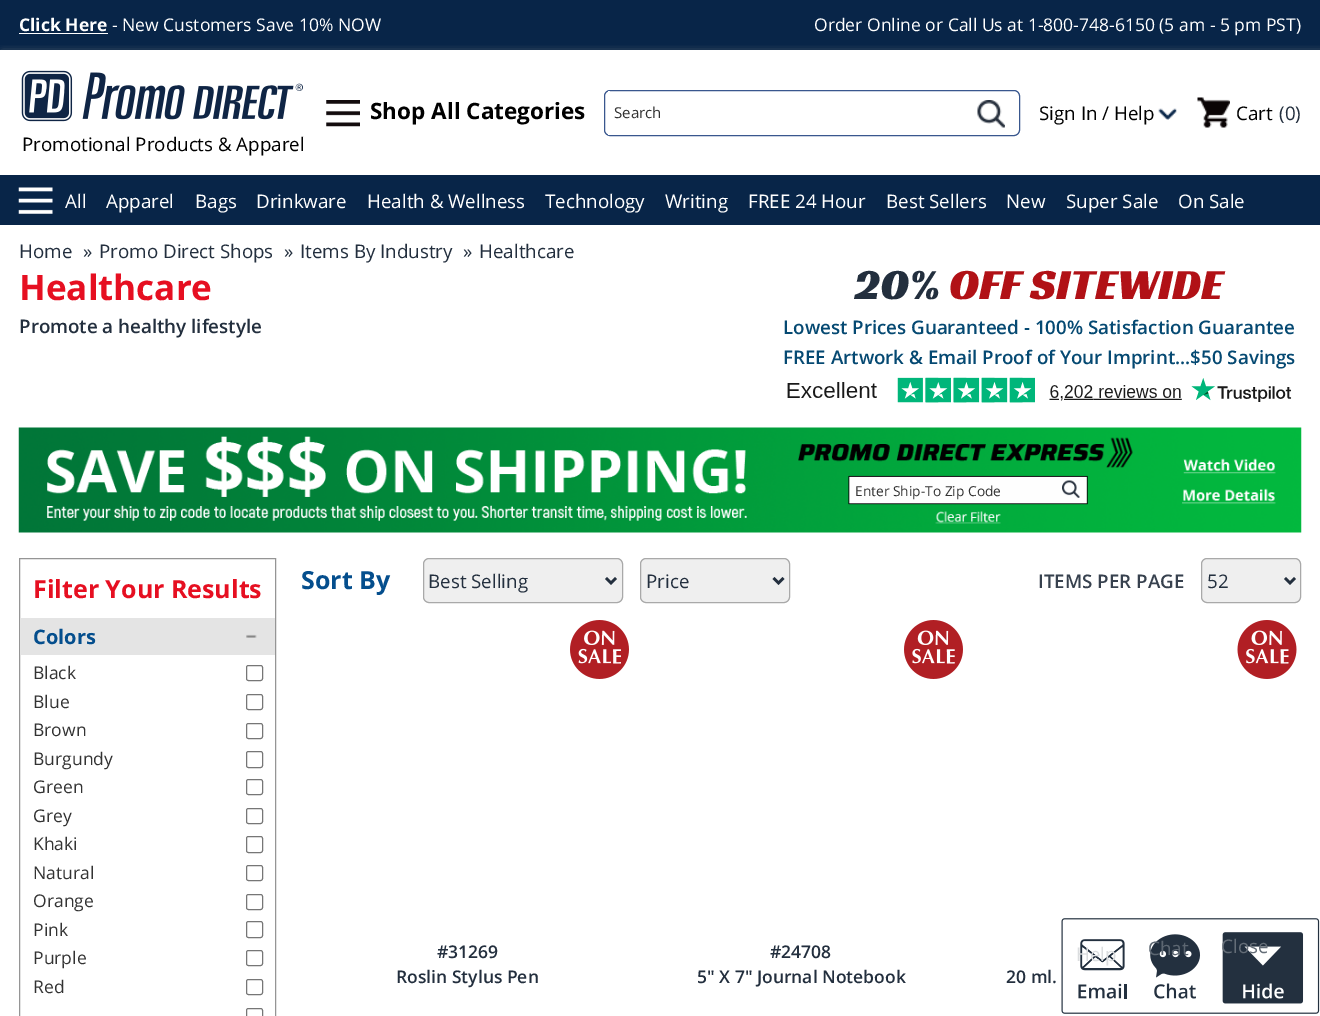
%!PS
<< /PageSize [1320 1016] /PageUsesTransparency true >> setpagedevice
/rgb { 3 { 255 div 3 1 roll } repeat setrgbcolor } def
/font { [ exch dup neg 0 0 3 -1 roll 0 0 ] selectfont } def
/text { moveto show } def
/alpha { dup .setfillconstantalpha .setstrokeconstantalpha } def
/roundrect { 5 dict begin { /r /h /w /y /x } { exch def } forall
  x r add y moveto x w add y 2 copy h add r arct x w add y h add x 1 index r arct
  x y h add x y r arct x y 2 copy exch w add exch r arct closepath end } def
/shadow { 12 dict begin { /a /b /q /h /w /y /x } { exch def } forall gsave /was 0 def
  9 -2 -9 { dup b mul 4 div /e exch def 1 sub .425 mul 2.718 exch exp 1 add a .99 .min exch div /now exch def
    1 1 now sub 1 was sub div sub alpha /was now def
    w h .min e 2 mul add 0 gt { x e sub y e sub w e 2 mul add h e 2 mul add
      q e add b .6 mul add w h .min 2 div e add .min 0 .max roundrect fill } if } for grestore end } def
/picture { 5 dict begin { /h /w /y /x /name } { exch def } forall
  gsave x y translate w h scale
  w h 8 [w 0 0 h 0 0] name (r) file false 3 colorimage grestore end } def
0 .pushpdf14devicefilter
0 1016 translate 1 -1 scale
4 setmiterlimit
255 255 255 rgb
0 0 1320 1016 rectfill
8 37 72 rgb
0 0 1320 50 rectfill
255 255 255 rgb
19 33 89 1 rectfill
gsave
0 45 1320 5 rectclip
136 136 136 rgb
3 53 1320 125 0 4 1 shadow
grestore
(img_01.rgb) 326 100 34 27 picture
57 87 142 rgb
604.5 90.5 415 45 5.5 roundrect stroke
255 255 255 rgb
608 91 2 44 rectfill
(img_02.rgb) 977 100 28 28 picture
(img_03.rgb) 1158 108 19 12 picture
(img_04.rgb) 1197 97 33 31 picture
(img_05.rgb) 21 70 282 52 picture
8 37 72 rgb
0 175 1320 50 rectfill
(img_06.rgb) 18 187 35 27 picture
(img_07.rgb) 787 377 505 26 picture
(img_08.rgb) 18 427 1284 106 picture
149 149 149 rgb
19.5 558.5 256 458 rectstroke
228 228 228 rgb
20 618 255 37 rectfill
(img_09.rgb) 246 634 11 4 picture
118 118 118 rgb
246.5 665.5 16 15 2 roundrect stroke
246.5 694.5 16 15 2 roundrect stroke
246.5 723.5 16 15 2 roundrect stroke
246.5 751.5 16 16 2 roundrect stroke
246.5 779.5 16 15 2 roundrect stroke
246.5 808.5 16 15 2 roundrect stroke
246.5 836.5 16 16 2 roundrect stroke
246.5 865.5 16 15 2 roundrect stroke
246.5 894.5 16 15 2 roundrect stroke
246.5 921.5 16 16 2 roundrect stroke
246.5 950.5 16 15 2 roundrect stroke
246.5 979.5 16 15 2 roundrect stroke
246.5 1008.5 16 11 2 roundrect stroke
239 239 239 rgb
423.5 558.5 199 44 5.5 roundrect gsave fill grestore
169 169 169 rgb
stroke
35 47 62 rgb
2.5 setlinewidth
606 578 moveto 5 5 rlineto 5 -5 rlineto stroke
239 239 239 rgb
640.5 558.5 149 44 5.5 roundrect gsave fill grestore
169 169 169 rgb
1 setlinewidth
stroke
35 47 62 rgb
2.5 setlinewidth
773.5 578 moveto 5 5 rlineto 5 -5 rlineto stroke
239 239 239 rgb
1201.5 558.5 99 44 5.5 roundrect gsave fill grestore
169 169 169 rgb
1 setlinewidth
stroke
35 47 62 rgb
2.5 setlinewidth
1285 578 moveto 5 5 rlineto 5 -5 rlineto stroke
(img_10.rgb) 570 620 59 59 picture
(img_11.rgb) 904 620 59 59 picture
(img_12.rgb) 1237 620 60 59 picture
(img_13.rgb) 1061 918 259 96 picture
/OpenSans-Bold 17.5 font
255 255 255 rgb
(Click Here) 19 31 text
/OpenSans-Regular 17.5 font
(- New Customers Save 10% NOW) 112 31 text
(Order Online or Call Us at 1-800-748-6150 \(5 am - 5 pm PST\)) 814 31 text
/OpenSans-Bold 22.5 font
0 0 0 rgb
(Shop All Categories) 370 119 text
/OpenSans-Regular 15 font
51 51 51 rgb
(Search) 614 118 text
/OpenSans-Regular 18.75 font
0 0 0 rgb
(Sign In / Help) 1039 120 text
(Cart) 1236 120 text
35 47 62 rgb
(\(0\)) 1279 120 text
0 0 0 rgb
(Promotional Products & Apparel) 22 151 text
255 255 255 rgb
(All) 65 208 text
(Apparel) 106 208 text
(Bags) 195 208 text
(Drinkware) 256 208 text
(Health & Wellness) 367 208 text
(Technology) 545 208 text
(Writing) 665 208 text
(FREE 24 Hour) 748 208 text
(Best Sellers) 886 208 text
(New) 1006 208 text
(Super Sale) 1066 208 text
(On Sale) 1178 208 text
35 47 62 rgb
(Home) 19 258 text
(») 83 258 text
(Promo Direct Shops) 99 258 text
(») 284 258 text
(Items By Industry) 300 258 text
(») 463 258 text
(Healthcare) 479 258 text
/OpenSans-Bold 35 font
230 15 33 rgb
(Healthcare) 19 300 text
/OpenSans-SemiBold 18.75 font
35 47 62 rgb
(Promote a healthy lifestyle) 19 333 text
/RacingSansOne-Regular 43.75 font
(20%) 854 299 text
177 17 22 rgb
(OFF SITEWIDE) 949 299 text
/OpenSans-SemiBold 18.75 font
5 73 114 rgb
(Lowest Prices Guaranteed - 100% Satisfaction Guarantee) 783 334 text
(FREE Artwork & Email Proof of Your Imprint...$50 Savings) 783 364 text
/OpenSans-Regular 13.75 font
51 51 51 rgb
(Enter Ship-To Zip Code) 855 496 text
/OpenSans-Bold 25 font
230 15 33 rgb
(Filter Your Results) 33 598 text
/OpenSans-Bold 20 font
4 78 141 rgb
(Colors) 33 644 text
/OpenSans-Regular 17.5 font
51 51 51 rgb
(Black) 33 679 text
(Blue) 33 708 text
(Brown) 33 736 text
(Burgundy) 33 765 text
(Green) 33 793 text
(Grey) 33 822 text
(Khaki) 33 850 text
(Natural) 33 879 text
(Orange) 33 907 text
(Pink) 33 936 text
(Purple) 33 964 text
(Red) 33 993 text
/OpenSans-Bold 25 font
4 78 141 rgb
(Sort By) 301 589 text
/OpenSans-Regular 18.75 font
35 47 62 rgb
(Best Selling) 428 588 text
(Price) 646 588 text
/OpenSans-SemiBold 18.75 font
55 65 78 rgb
(ITEMS PER PAGE) 1038 588 text
/OpenSans-Regular 18.75 font
35 47 62 rgb
(52) 1207 588 text
/OpenSans-SemiBold 17.5 font
(#31269) 437 958 text
(Roslin Stylus Pen) 396 983 text
(#24708) 770 958 text
(5" X 7" Journal Notebook) 697 983 text
(20 ml.) 1006 983 text
/OpenSans-Regular 18.75 font
219 221 223 rgb
(Help) 1076 961 text
92 102 113 rgb
(Chat) 1148 955 text
100 109 119 rgb
(Close) 1221 953 text
.poppdf14devicefilter showpage
